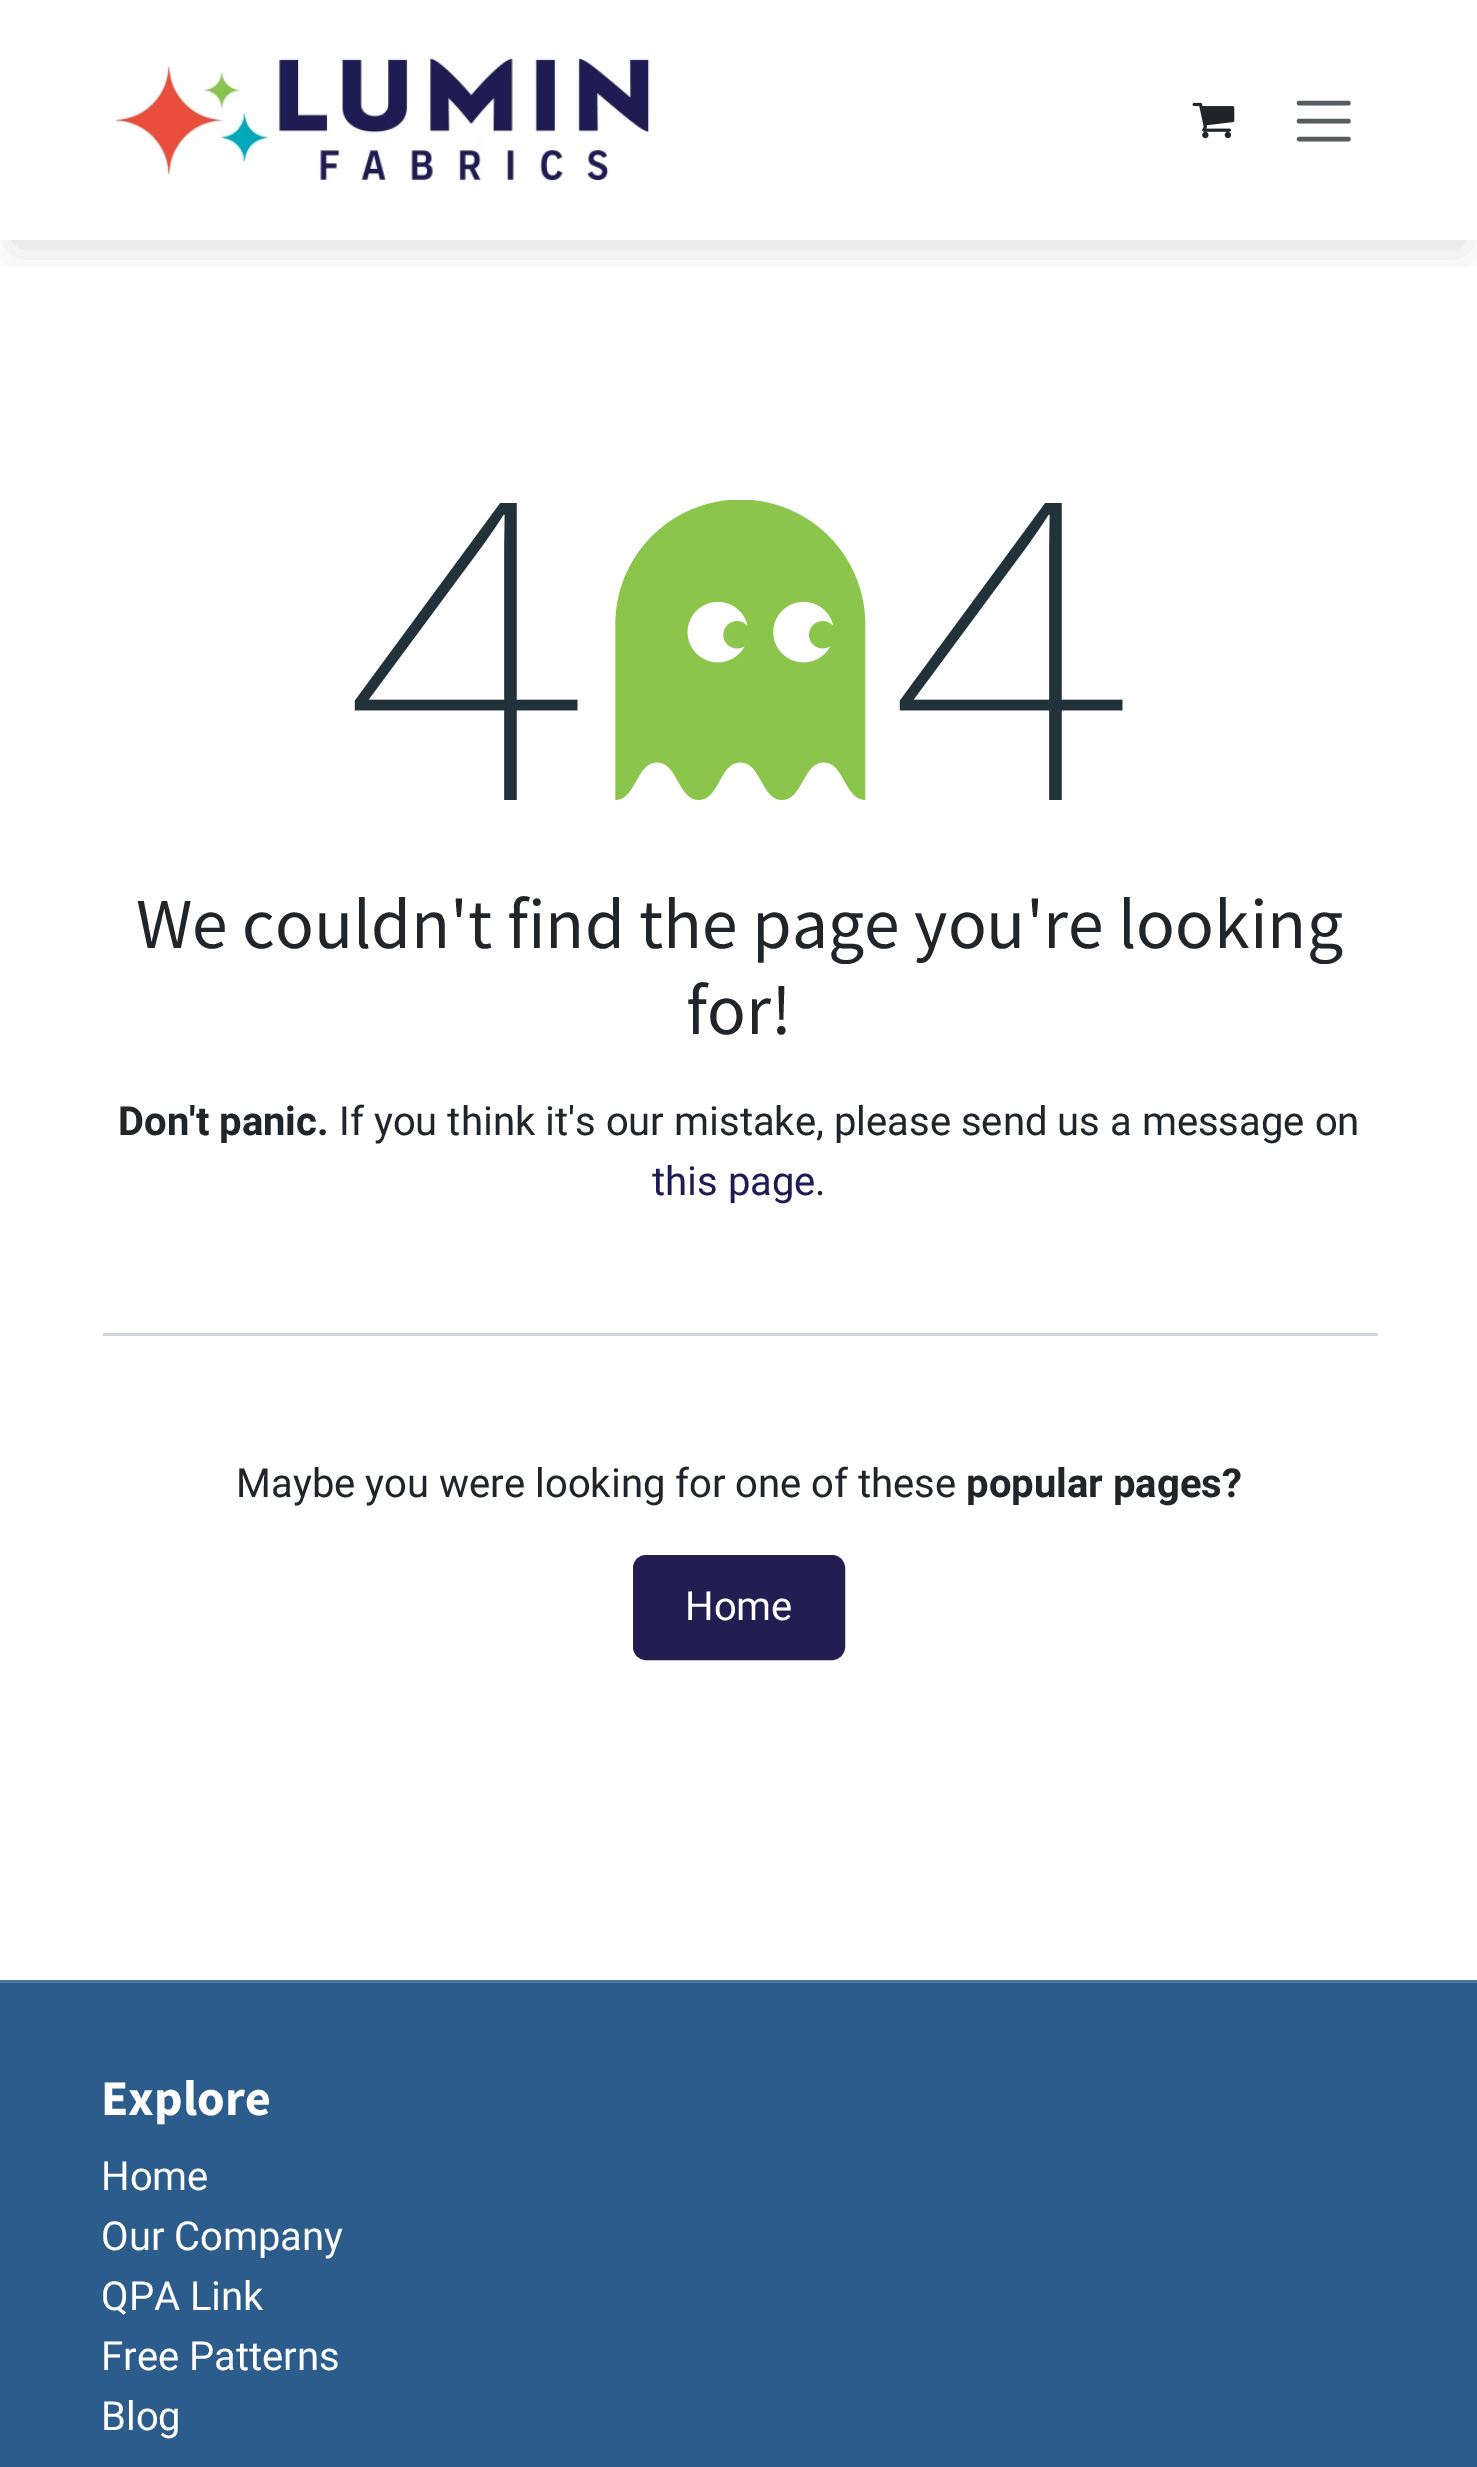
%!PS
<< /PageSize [1477 2467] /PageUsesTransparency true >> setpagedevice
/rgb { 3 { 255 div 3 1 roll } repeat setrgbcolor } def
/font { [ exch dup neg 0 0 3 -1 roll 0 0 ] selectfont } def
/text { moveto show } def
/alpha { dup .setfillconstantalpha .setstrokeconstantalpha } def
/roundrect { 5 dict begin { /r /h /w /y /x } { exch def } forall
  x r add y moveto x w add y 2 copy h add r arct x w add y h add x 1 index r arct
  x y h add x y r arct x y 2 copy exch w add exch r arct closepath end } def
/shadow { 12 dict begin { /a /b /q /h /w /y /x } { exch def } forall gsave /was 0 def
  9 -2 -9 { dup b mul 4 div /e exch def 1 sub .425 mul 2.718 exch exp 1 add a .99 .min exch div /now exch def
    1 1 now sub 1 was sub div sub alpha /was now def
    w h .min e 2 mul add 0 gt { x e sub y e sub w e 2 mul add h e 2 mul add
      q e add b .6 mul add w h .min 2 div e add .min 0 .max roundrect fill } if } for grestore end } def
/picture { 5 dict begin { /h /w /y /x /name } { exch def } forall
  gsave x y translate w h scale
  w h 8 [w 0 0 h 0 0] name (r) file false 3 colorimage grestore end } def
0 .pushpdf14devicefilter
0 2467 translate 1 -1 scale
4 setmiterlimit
255 255 255 rgb
0 0 1477 2467 rectfill
gsave
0 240 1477 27 rectclip
0 0 0 rgb
15 35 1448 210 0 20 0.15 shadow
grestore
(img_01.rgb) 115 56 535 125 picture
(img_02.rgb) 1192 102 43 37 picture
89 92 95 rgb
4.5 setlinewidth
1 setlinecap
1299 103 moveto 49.5 0 rlineto 1299 121 moveto 49.5 0 rlineto 1299 139 moveto 49.5 0 rlineto stroke
(img_03.rgb) 354 500 769 300 picture
206 212 218 rgb
103 1333 1275 3 rectfill
34 30 82 rgb
634.5 1556.5 209 102 11.5 roundrect gsave fill grestore
3 setlinewidth
0 setlinecap
stroke
43 92 140 rgb
0 1983 1477 484 rectfill
75 116 157 rgb
0 1980 1477 3 rectfill
/SourceSansPro-Regular 71.75 font
33 37 41 rgb
(We couldn't find the page you're looking) 136 948 text
(for!) 686 1034 text
/Heebo-Bold 40 font
(Don't panic.) 118 1135 text
/Heebo-Regular 40 font
(If you think it's our mistake, please send us a message on) 339 1135 text
31 28 83 rgb
(this page) 652 1195 text
33 37 41 rgb
(.) 815 1195 text
(Maybe you were looking for one of these) 236 1497 text
/Heebo-Bold 40 font
(popular pages?) 966 1497 text
/Heebo-Regular 40 font
255 255 255 rgb
(Home) 685 1620 text
/SourceSansPro-Bold 50 font
(Explore) 101 2115 text
/Heebo-Regular 40 font
(Home) 101 2190 text
(Our Company) 101 2250 text
(QPA Link) 101 2310 text
(Free Patterns) 101 2370 text
(Blog) 101 2430 text
.poppdf14devicefilter showpage
